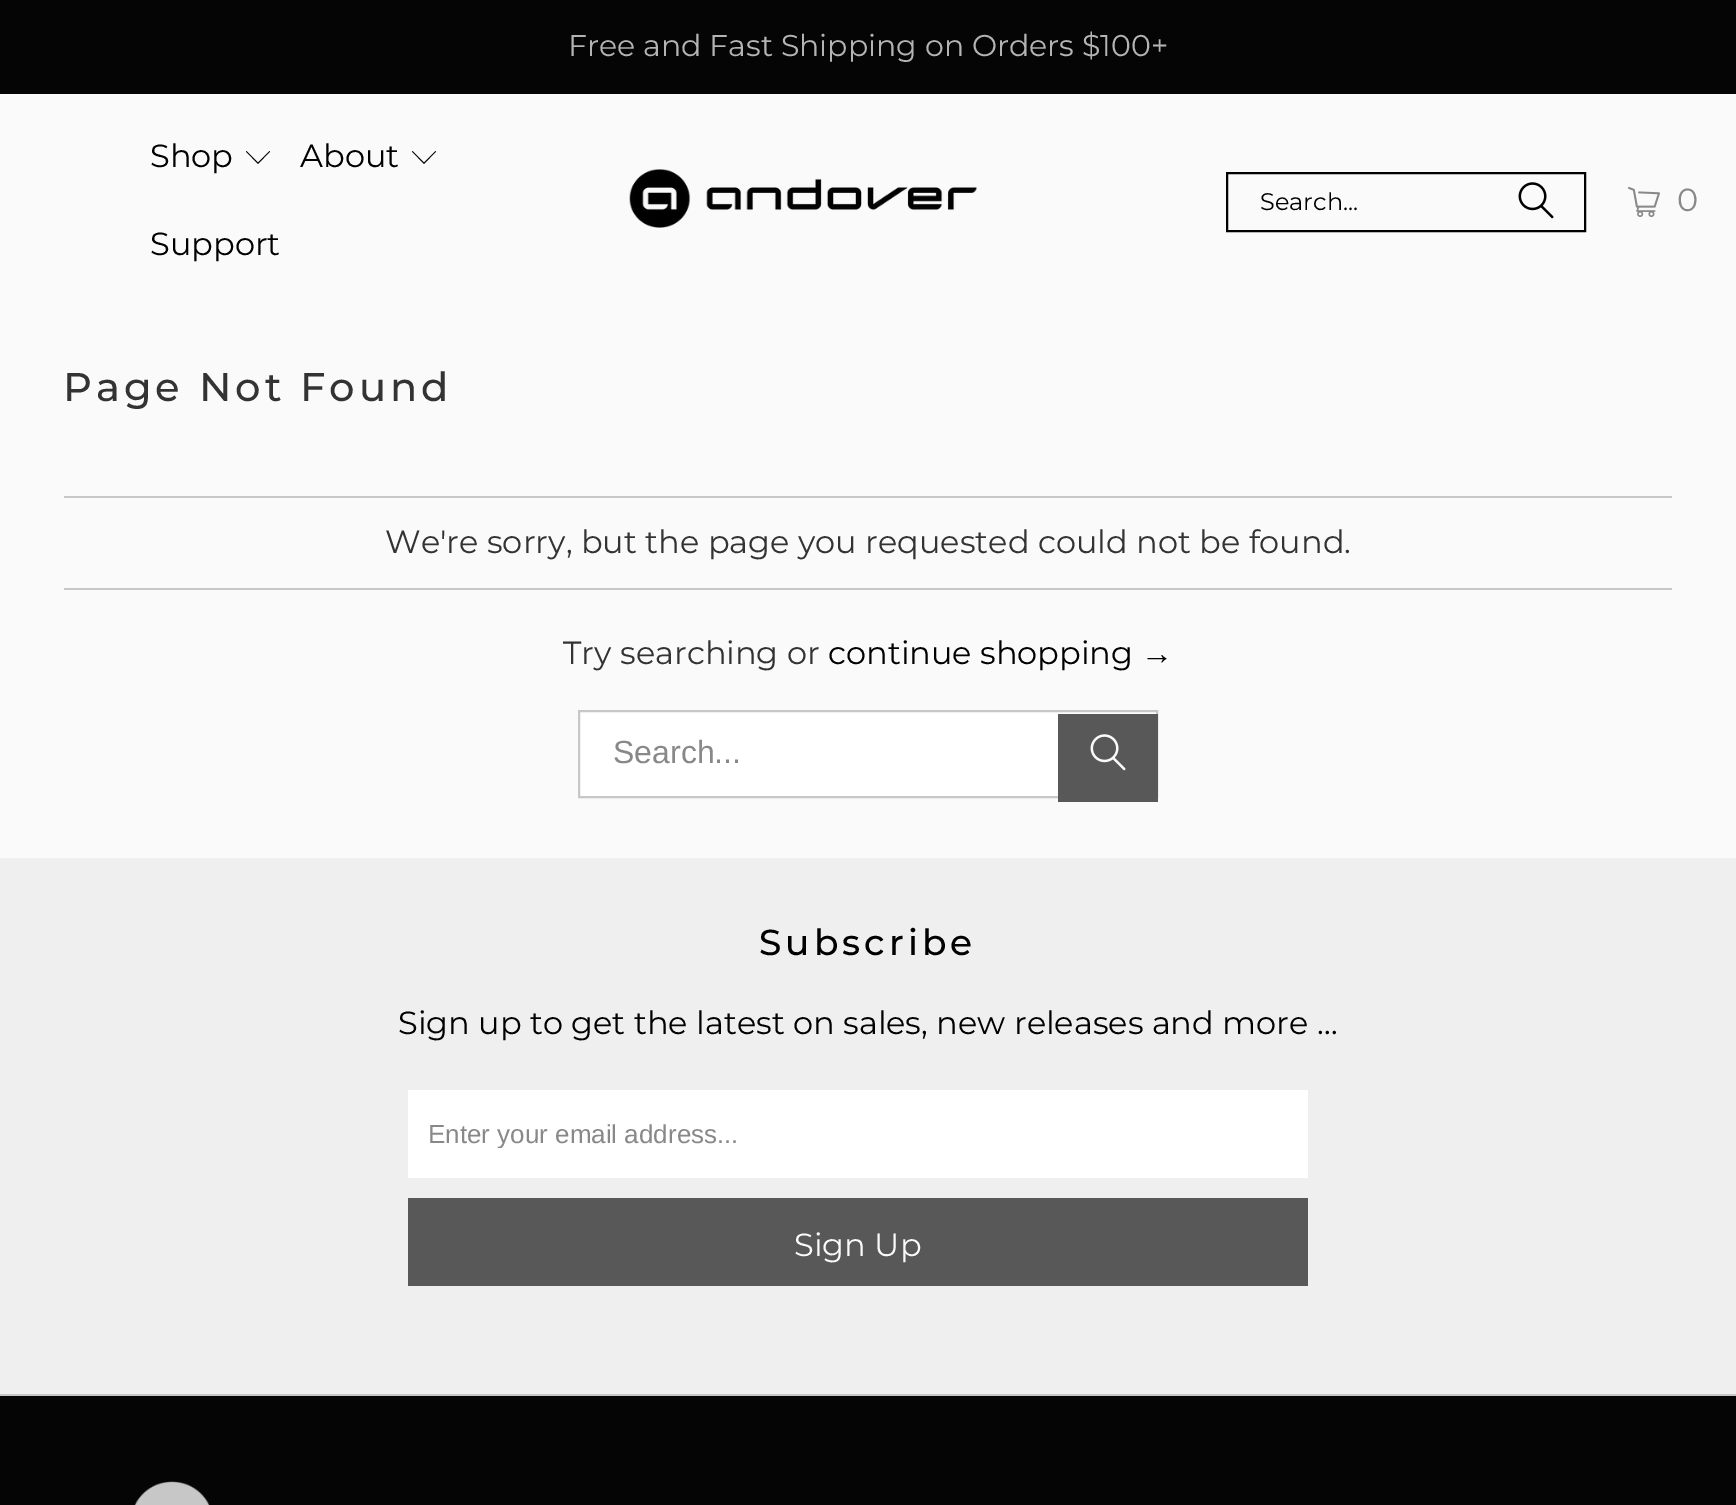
%!PS
<< /PageSize [1736 1505] >> setpagedevice
/rgb { 3 { 255 div 3 1 roll } repeat setrgbcolor } def
/font { [ exch dup neg 0 0 3 -1 roll 0 0 ] selectfont } def
/text { moveto show } def
/picture { 5 dict begin { /h /w /y /x /name } { exch def } forall
  gsave x y translate w h scale
  w h 8 [w 0 0 h 0 0] name (r) file false 3 colorimage grestore end } def
0 1505 translate 1 -1 scale
4 setmiterlimit
250 250 250 rgb
0 0 1736 1505 rectfill
5 5 5 rgb
0 0 1736 94 rectfill
0 0 0 rgb
258 164 moveto -12 -12.5 rlineto 0.5 -0.5 rlineto 11.5 11.5 rlineto 11.5 -11.5 rlineto 0.5 0.5 rlineto closepath fill
424 164 moveto -12 -12.5 rlineto 0.5 -0.5 rlineto 11.5 11.5 rlineto 11.5 -11.5 rlineto 0.5 0.5 rlineto closepath fill
(img_01.rgb) 629 169 348 59 picture
2 setlinewidth
1227 173 358 58 rectstroke
(img_02.rgb) 1518 182 36 37 picture
(img_03.rgb) 1628 187 32 30 picture
199 199 199 rgb
64 496 1608 2 rectfill
64 588 1608 2 rectfill
255 255 255 rgb
579 711 moveto 578 0 rlineto 0 86 rlineto -578 0 rlineto closepath gsave fill grestore
199 199 199 rgb
stroke
88 88 88 rgb
1058 714 100 88 rectfill
(img_04.rgb) 1090 734 36 37 picture
239 239 239 rgb
0 858 1736 536 rectfill
255 255 255 rgb
408 1090 900 88 rectfill
88 88 88 rgb
408 1198 900 88 rectfill
5 5 5 rgb
0 1396 1736 109 rectfill
199 199 199 rgb
0 1394 1736 2 rectfill
(img_05.rgb) 134 1481 76 24 picture
/Montserrat-Regular 30 font
180 180 180 rgb
(Free and Fast Shipping on Orders $100+) 568 56 text
/Montserrat-Regular 32 font
0 0 0 rgb
(Shop) 150 167 text
(About) 300 167 text
(Support) 150 255 text
/Montserrat-Regular 24 font
(Search...) 1260 210 text
/Montserrat-Regular 32 font
136 136 136 rgb
(0) 1677 211 text
/Montserrat-Medium 40 font
51 51 51 rgb
63 401 moveto 4 0 (Page Not Found) ashow
/Montserrat-Regular 32 font
(We're sorry, but the page you requested could not be found.) 385 553 text
(Try searching or) 563 664 text
0 0 0 rgb
(continue shopping) 828 664 text
/LiberationSans-Regular 32 font
(→) 1141 664 text
136 136 136 rgb
(Search...) 613 763 text
/Montserrat-Medium 36 font
0 0 0 rgb
759 955 moveto 4 0 (Subscribe) ashow
/Montserrat-Regular 32 font
(Sign up to get the latest on sales, new releases and more …) 398 1034 text
gsave
428 1118 860 30 rectclip
/LiberationSans-Regular 26 font
136 136 136 rgb
(Enter your email address...) 428 1143 text
grestore
250 250 250 rgb
(Sign Up) 794 1256 text
showpage
